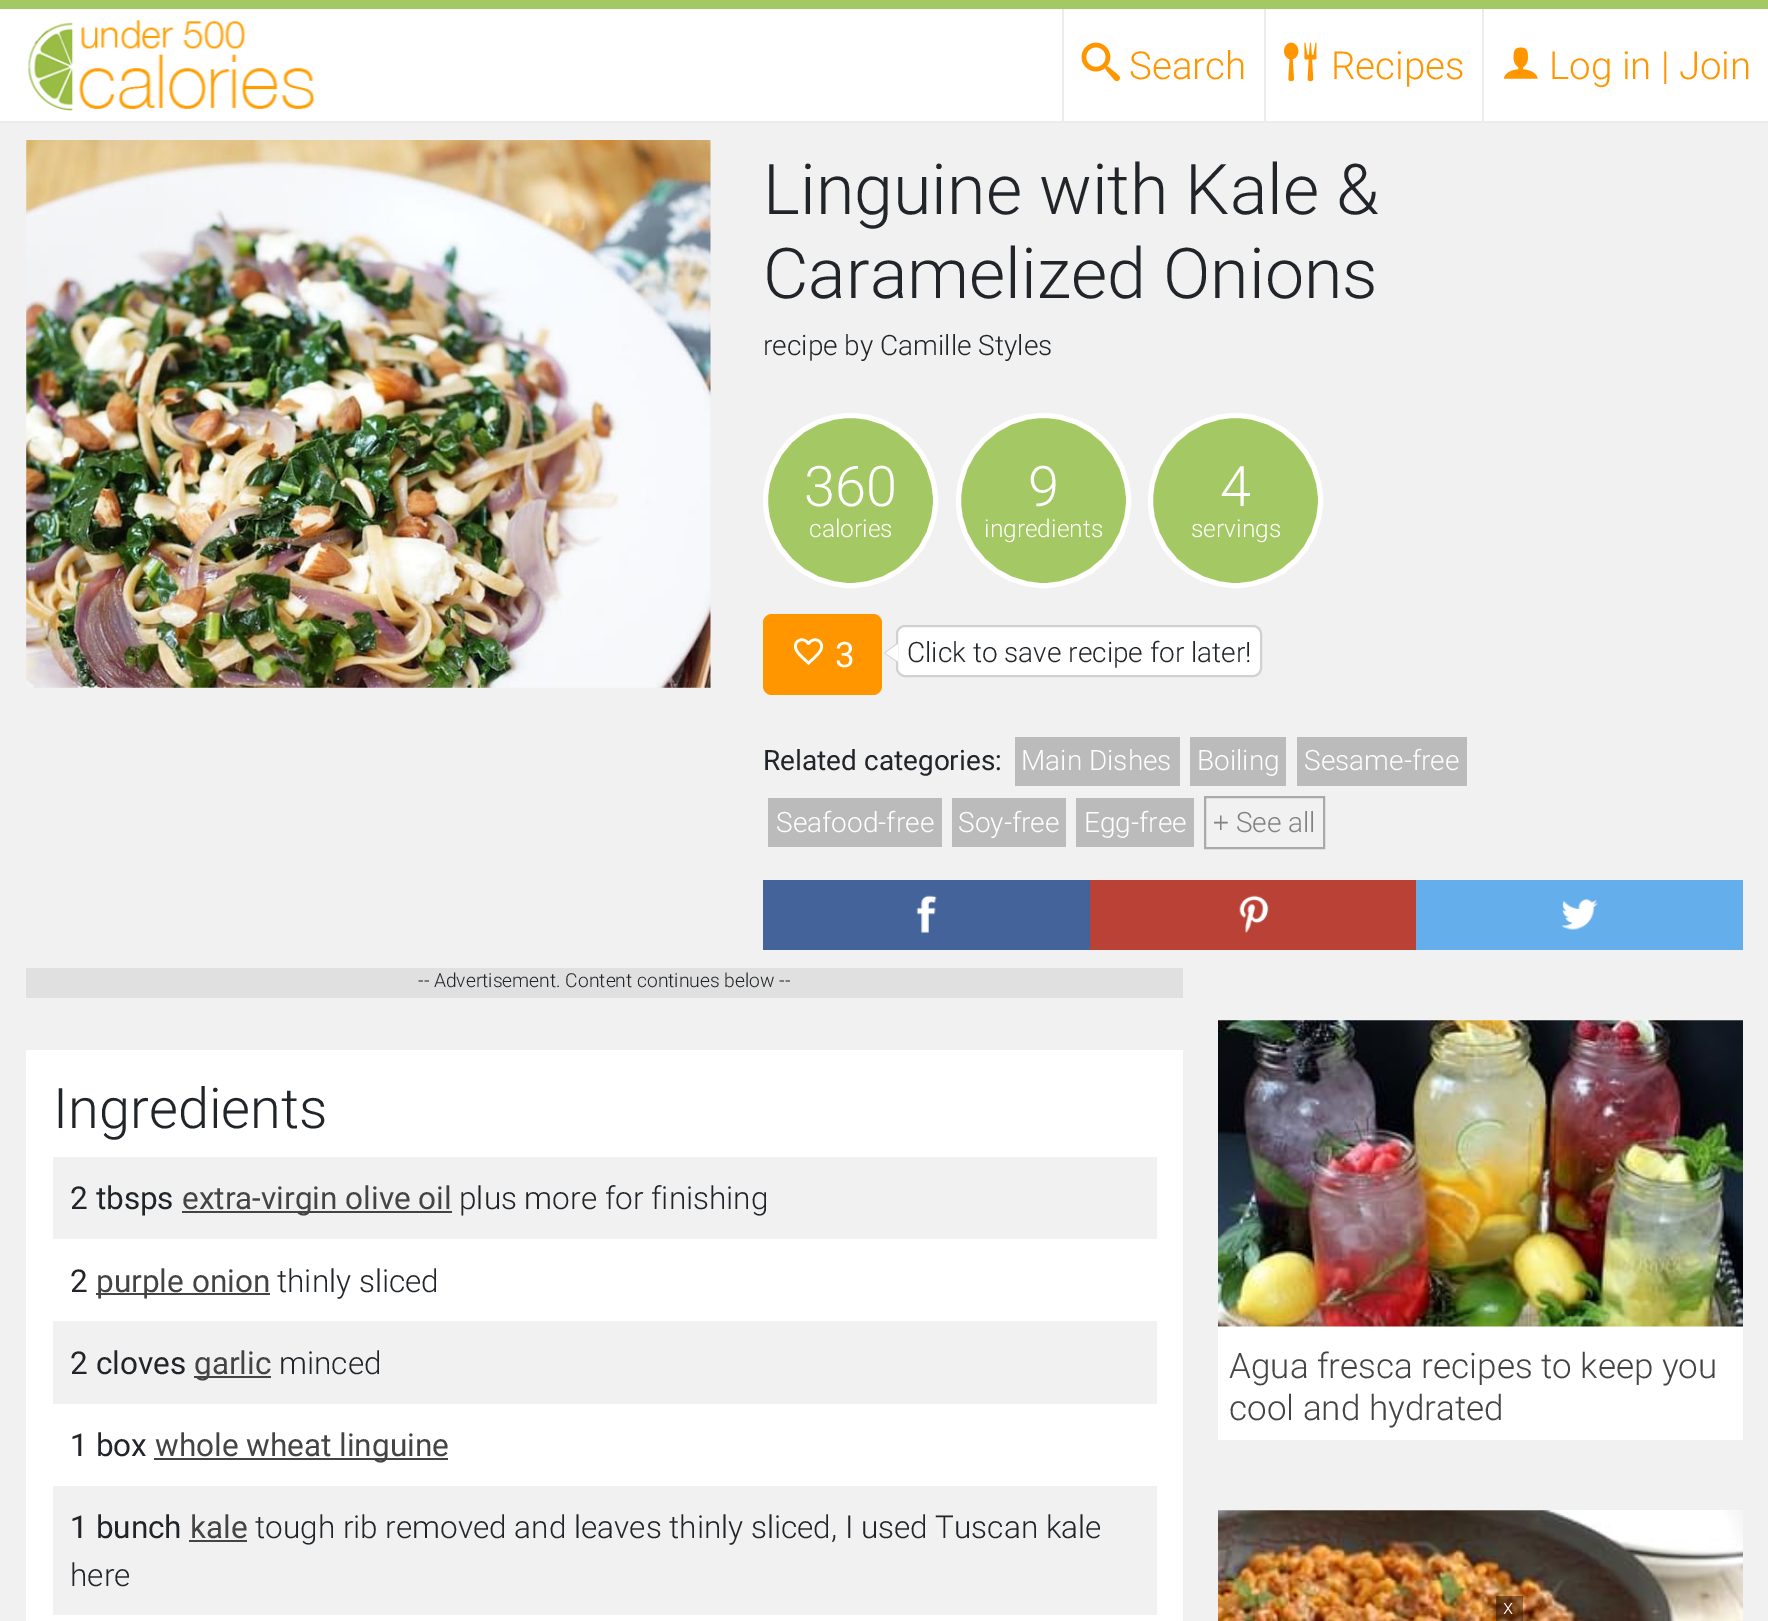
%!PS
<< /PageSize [1768 1621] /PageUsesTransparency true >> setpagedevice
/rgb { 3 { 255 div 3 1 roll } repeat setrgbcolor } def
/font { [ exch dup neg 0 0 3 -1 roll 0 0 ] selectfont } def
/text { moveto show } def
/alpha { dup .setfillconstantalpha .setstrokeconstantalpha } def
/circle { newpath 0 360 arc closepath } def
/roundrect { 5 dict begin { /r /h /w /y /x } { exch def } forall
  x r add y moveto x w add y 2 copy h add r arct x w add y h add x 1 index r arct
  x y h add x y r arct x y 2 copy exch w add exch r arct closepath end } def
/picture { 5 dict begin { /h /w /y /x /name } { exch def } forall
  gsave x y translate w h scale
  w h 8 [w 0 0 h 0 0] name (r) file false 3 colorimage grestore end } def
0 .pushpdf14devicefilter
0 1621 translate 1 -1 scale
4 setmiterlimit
241 241 241 rgb
0 0 1768 1621 rectfill
255 255 255 rgb
0 9 1768 112 rectfill
236 236 236 rgb
0 121 1768 2 rectfill
164 201 100 rgb
0 0 1768 9 rectfill
(img_01.rgb) 28 20 286 91 picture
236 236 236 rgb
1062 9 2 114 rectfill
(img_02.rgb) 1081 42 39 40 picture
1264 9 2 114 rectfill
(img_03.rgb) 1284 42 33 40 picture
1482 9 2 114 rectfill
(img_04.rgb) 1503 47 35 32 picture
(img_05.rgb) 26 140 685 548 picture
164 201 100 rgb
850.5 500.5 85 circle gsave fill grestore
255 255 255 rgb
5 setlinewidth
stroke
164 201 100 rgb
1043.5 500.5 85 circle gsave fill grestore
255 255 255 rgb
stroke
164 201 100 rgb
1235.5 500.5 85 circle gsave fill grestore
255 255 255 rgb
stroke
255 150 0 rgb
763 614 119 81 9 roundrect fill
(img_06.rgb) 793 638 31 27 picture
255 255 255 rgb
897 626 364 50 8 roundrect gsave fill grestore
209 209 209 rgb
2 setlinewidth
stroke
896 644 moveto 0 17.5 rlineto -12 -8.5 rlineto closepath fill
255 255 255 rgb
898 644 moveto 0 17.5 rlineto -12.5 -8.5 rlineto closepath fill
187 187 187 rgb
1015 737 165 49 rectfill
1190 737 96 49 rectfill
1297 737 170 49 rectfill
768 798 174 49 rectfill
952 798 114 49 rectfill
1076 798 118 49 rectfill
170 170 170 rgb
1205 797 119 51 rectstroke
68 99 154 rgb
763 880 327 70 rectfill
(img_07.rgb) 916 895 21 39 picture
186 65 54 rgb
1090 880 326 70 rectfill
(img_08.rgb) 1239 895 30 38 picture
99 174 235 rgb
1416 880 327 70 rectfill
(img_09.rgb) 1561 899 37 31 picture
224 224 224 rgb
26 968 1157 30 rectfill
255 255 255 rgb
26 1050 1157 571 rectfill
241 241 241 rgb
53 1157 1104 82 rectfill
68 68 68 rgb
182 1211 270 2 rectfill
96 1293 174 2 rectfill
241 241 241 rgb
53 1321 1104 83 rectfill
68 68 68 rgb
194 1376 77 2 rectfill
154 1458 294 2 rectfill
241 241 241 rgb
53 1486 1104 129 rectfill
68 68 68 rgb
189 1540 58 2 rectfill
255 255 255 rgb
1218 1020 525 420 rectfill
(img_10.rgb) 1218 1020 525 307 picture
(img_11.rgb) 1218 1510 525 111 picture
0.4 alpha
0 0 0 rgb
1496 1596 27 25 rectfill
/Roboto-Light 38.5 font
1 alpha
255 150 0 rgb
(Search) 1129 79 text
(Recipes) 1331 79 text
(Log in | Join) 1549 79 text
/Roboto-Light 70 font
33 37 41 rgb
(Linguine with Kale &) 763 214 text
(Caramelized Onions) 763 298 text
/Roboto-Light 28 font
(recipe by Camille Styles) 763 355 text
/Roboto-Light 56 font
255 255 255 rgb
(360) 804 506 text
/Roboto-Light 24.5 font
(calories) 809 537 text
/Roboto-Light 56 font
(9) 1028 506 text
/Roboto-Light 24.5 font
(ingredients) 984 537 text
/Roboto-Light 56 font
(4) 1220 506 text
/Roboto-Light 24.5 font
(servings) 1191 537 text
/Roboto-Regular 35 font
(3) 835 667 text
/Roboto-Light 28 font
33 37 41 rgb
(Click to save recipe for later!) 907 662 text
/Roboto-Regular 28 font
(Related categories:) 763 770 text
/Roboto-Light 28 font
255 255 255 rgb
(Main Dishes) 1021 770 text
(Boiling) 1197 770 text
(Sesame-free) 1304 770 text
(Seafood-free) 776 832 text
(Soy-free) 958 832 text
(Egg-free) 1084 832 text
129 129 129 rgb
(+ See all) 1213 832 text
/Roboto-Light 19.25 font
33 37 41 rgb
(-- Advertisement. Content continues below --) 418 987 text
/Roboto-Light 56 font
(Ingredients) 53 1128 text
/Roboto-Regular 31.5 font
(2 tbsps) 70 1209 text
68 68 68 rgb
(extra-virgin olive oil) 182 1209 text
/Roboto-Light 31.5 font
33 37 41 rgb
(plus more for finishing) 459 1209 text
/Roboto-Regular 31.5 font
(2) 70 1292 text
68 68 68 rgb
(purple onion) 96 1292 text
/Roboto-Light 31.5 font
33 37 41 rgb
(thinly sliced) 277 1292 text
/Roboto-Regular 31.5 font
(2 cloves) 70 1374 text
68 68 68 rgb
(garlic) 194 1374 text
/Roboto-Light 31.5 font
33 37 41 rgb
(minced) 279 1374 text
/Roboto-Regular 31.5 font
(1 box) 70 1456 text
68 68 68 rgb
(whole wheat linguine) 155 1456 text
33 37 41 rgb
(1 bunch) 70 1538 text
68 68 68 rgb
(kale) 190 1538 text
/Roboto-Light 31.5 font
33 37 41 rgb
(tough rib removed and leaves thinly sliced, I used Tuscan kale) 255 1538 text
(here) 70 1586 text
/Roboto-Light 35 font
68 68 68 rgb
(Agua fresca recipes to keep you) 1229 1378 text
(cool and hydrated) 1229 1420 text
/Roboto-Light 21 font
255 255 255 rgb
(x) 1503 1614 text
.poppdf14devicefilter showpage
